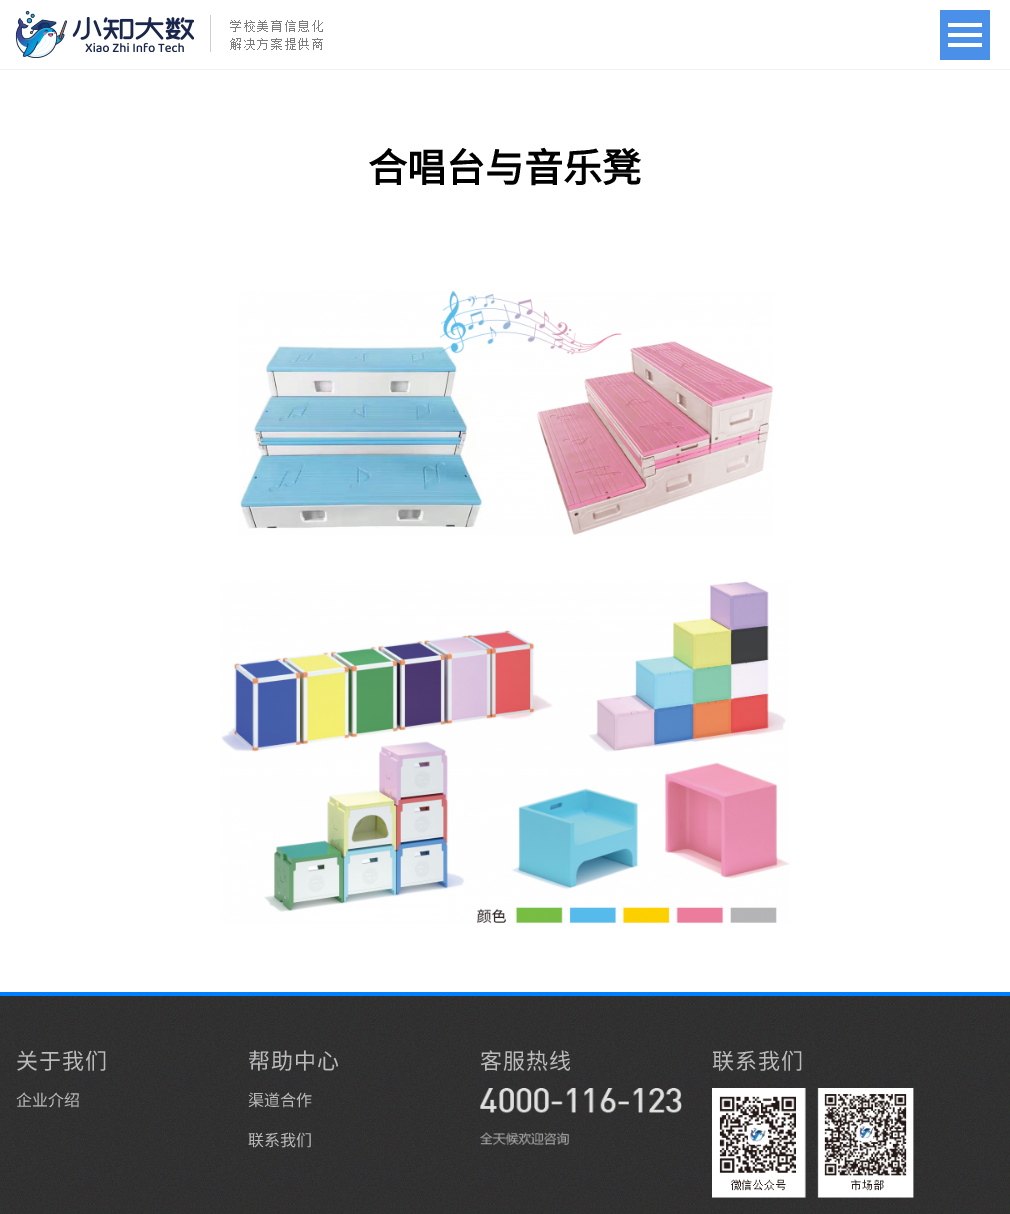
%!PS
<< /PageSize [1010 1214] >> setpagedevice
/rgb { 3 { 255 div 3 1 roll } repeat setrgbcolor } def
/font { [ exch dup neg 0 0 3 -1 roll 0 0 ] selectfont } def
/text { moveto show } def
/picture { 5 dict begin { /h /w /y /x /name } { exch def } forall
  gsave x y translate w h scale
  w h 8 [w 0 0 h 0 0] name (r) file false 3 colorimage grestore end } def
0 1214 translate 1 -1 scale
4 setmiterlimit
255 255 255 rgb
0 0 1010 1214 rectfill
241 241 241 rgb
0 69 1010 1 rectfill
(img_01.rgb) 15 11 308 47 picture
74 144 232 rgb
940 10 50 50 rectfill
255 255 255 rgb
948 23 34 4 rectfill
948 43 34 4 rectfill
948 33 34 4 rectfill
(img_02.rgb) 238 290 536 245 picture
(img_03.rgb) 221 581 569 343 picture
(img_04.rgb) 0 996 1010 218 picture
0 127 255 rgb
0 992 1010 4 rectfill
(img_05.rgb) 480 1088 202 57 picture
(img_06.rgb) 712 1088 202 110 picture
/NotoSansCJKSC-Bold 39 font
0 0 0 rgb
(合唱台与音乐凳) 368 182 text
/NotoSansCJKSC-Regular 22 font
187 187 187 rgb
16 1069 moveto 1 0 (关于我们) ashow
/NotoSansCJKSC-Regular 16 font
(企业介绍) 16 1106 text
/NotoSansCJKSC-Regular 22 font
248 1069 moveto 1 0 (帮助中心) ashow
/NotoSansCJKSC-Regular 16 font
(渠道合作) 248 1106 text
(联系我们) 248 1146 text
/NotoSansCJKSC-Regular 22 font
480 1069 moveto 1 0 (客服热线) ashow
712 1069 moveto 1 0 (联系我们) ashow
showpage
